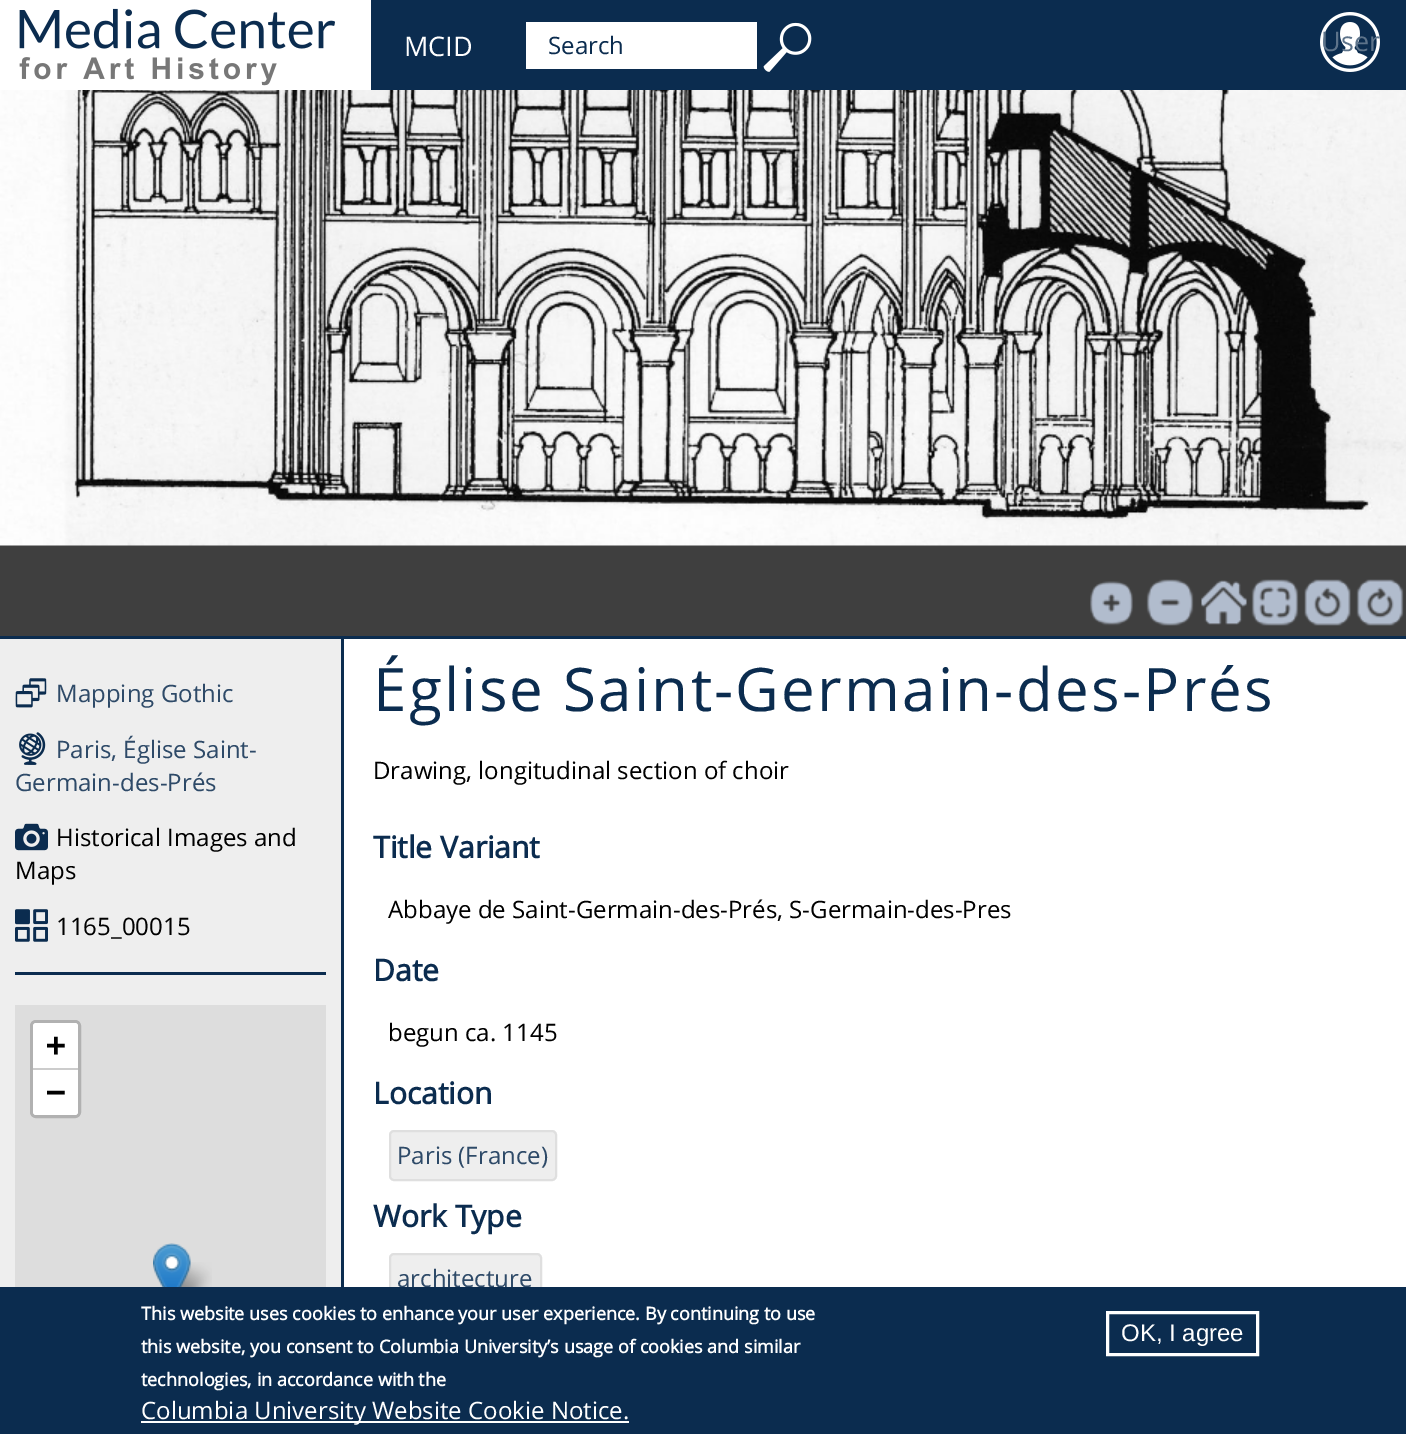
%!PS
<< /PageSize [1406 1434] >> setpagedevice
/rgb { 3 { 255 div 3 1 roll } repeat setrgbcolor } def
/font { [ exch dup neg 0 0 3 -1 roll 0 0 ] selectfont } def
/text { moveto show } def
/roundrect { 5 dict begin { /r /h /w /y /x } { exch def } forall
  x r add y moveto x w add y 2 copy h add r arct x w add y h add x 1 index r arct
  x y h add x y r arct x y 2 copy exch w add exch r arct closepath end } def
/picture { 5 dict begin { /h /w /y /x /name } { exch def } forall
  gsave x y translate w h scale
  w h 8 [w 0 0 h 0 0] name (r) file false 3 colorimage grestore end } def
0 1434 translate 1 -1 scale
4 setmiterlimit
255 255 255 rgb
0 0 1406 1434 rectfill
11 44 79 rgb
371 0 1035 90 rectfill
(img_01.rgb) 19 8 316 78 picture
255 255 255 rgb
526 22 231 47 rectfill
(img_02.rgb) 763 22 49 50 picture
(img_03.rgb) 1320 12 60 60 picture
63 63 63 rgb
0 545 1406 91 rectfill
(img_04.rgb) 0 90 1406 456 picture
(img_05.rgb) 1090 581 43 45 picture
(img_06.rgb) 1146 579 48 47 picture
(img_07.rgb) 1201 580 46 45 picture
(img_08.rgb) 1251 579 48 47 picture
(img_09.rgb) 1304 579 47 47 picture
(img_10.rgb) 1356 579 48 47 picture
11 44 79 rgb
0 636 1406 3 rectfill
238 238 238 rgb
0 639 341 648 rectfill
11 44 79 rgb
341 639 3 648 rectfill
(img_11.rgb) 15 678 32 30 picture
(img_12.rgb) 19 732 27 33 picture
(img_13.rgb) 15 823 33 28 picture
(img_14.rgb) 15 909 33 33 picture
15 972 311 3 rectfill
221 221 221 rgb
15 1005 311 282 rectfill
177 177 177 rgb
3 setlinewidth
31.5 1021.5 48 95 4.5 roundrect stroke
255 255 255 rgb
36 1023 moveto 39 0 rlineto 1.5 0 3 1.5 3 3 rcurveto 0 44 rlineto -45 0 rlineto 0 -44 rlineto 0 -1.5 1.5 -3 3 -3 rcurveto closepath fill
204 204 204 rgb
33 1068 45 2 rectfill
255 255 255 rgb
33 1070 moveto 45 0 rlineto 0 42 rlineto 0 1.5 -1.5 3 -3 3 rcurveto -39 0 rlineto -1.5 0 -3 -1.5 -3 -3 rcurveto closepath fill
(img_16.rgb) 178 1262 34 25 picture
(img_15.rgb) 153 1243 38 44 picture
238 238 238 rgb
390 1131 166 49 4 roundrect gsave fill grestore
223 223 223 rgb
2 setlinewidth
stroke
238 238 238 rgb
390 1254 151 49 4 roundrect gsave fill grestore
223 223 223 rgb
stroke
/OpenSans-Regular 27 font
255 255 255 rgb
(MCID) 404 56 text
/OpenSans-Regular 24 font
11 44 79 rgb
(Search) 548 54 text
/OpenSans-Regular 27 font
93 115 138 rgb
(User) 1321 51 text
/OpenSans-Regular 24 font
46 74 104 rgb
(Mapping Gothic) 56 702 text
(Paris, Église Saint-) 56 758 text
(Germain-des-Prés) 15 791 text
0 0 0 rgb
(Historical Images and) 56 846 text
(Maps) 15 879 text
(1165_00015) 56 935 text
/DejaVuSansMono-Bold 33 font
(+) 46 1056 text
(−) 46 1103 text
/OpenSans-Regular 60 font
11 44 79 rgb
373 711 moveto 2.25 0 (Église Saint-Germain-des-Prés) ashow
/OpenSans-Regular 24 font
0 0 0 rgb
(Drawing, longitudinal section of choir) 373 779 text
/OpenSans-Bold 30 font
11 44 79 rgb
(Title Variant) 373 858 text
/OpenSans-Regular 24 font
0 0 0 rgb
(Abbaye de Saint-Germain-des-Prés, S-Germain-des-Pres) 388 918 text
/OpenSans-Bold 30 font
11 44 79 rgb
(Date) 373 981 text
/OpenSans-Regular 24 font
0 0 0 rgb
(begun ca. 1145) 388 1041 text
/OpenSans-Bold 30 font
11 44 79 rgb
(Location) 373 1104 text
/OpenSans-Regular 24 font
46 74 104 rgb
(Paris \(France\)) 397 1164 text
/OpenSans-Bold 30 font
11 44 79 rgb
(Work Type) 373 1227 text
/OpenSans-Regular 24 font
46 74 104 rgb
(architecture) 397 1287 text
11 44 79 rgb
0 1287 1406 147 rectfill
/OpenSans-Bold 18 font
255 255 255 rgb
(This website uses cookies to enhance your user experience. By continuing to use) 141 1320 text
(this website, you consent to Columbia University’s usage of cookies and similar) 141 1353 text
(technologies, in accordance with the) 141 1386 text
141 1421 488 2 rectfill
/OpenSans-Regular 24 font
(Columbia University Website Cookie Notice.) 141 1419 text
3 setlinewidth
1107.5 1312.5 150 42 rectstroke
/LiberationSans-Regular 24 font
(OK, I agree) 1121 1341 text
showpage
